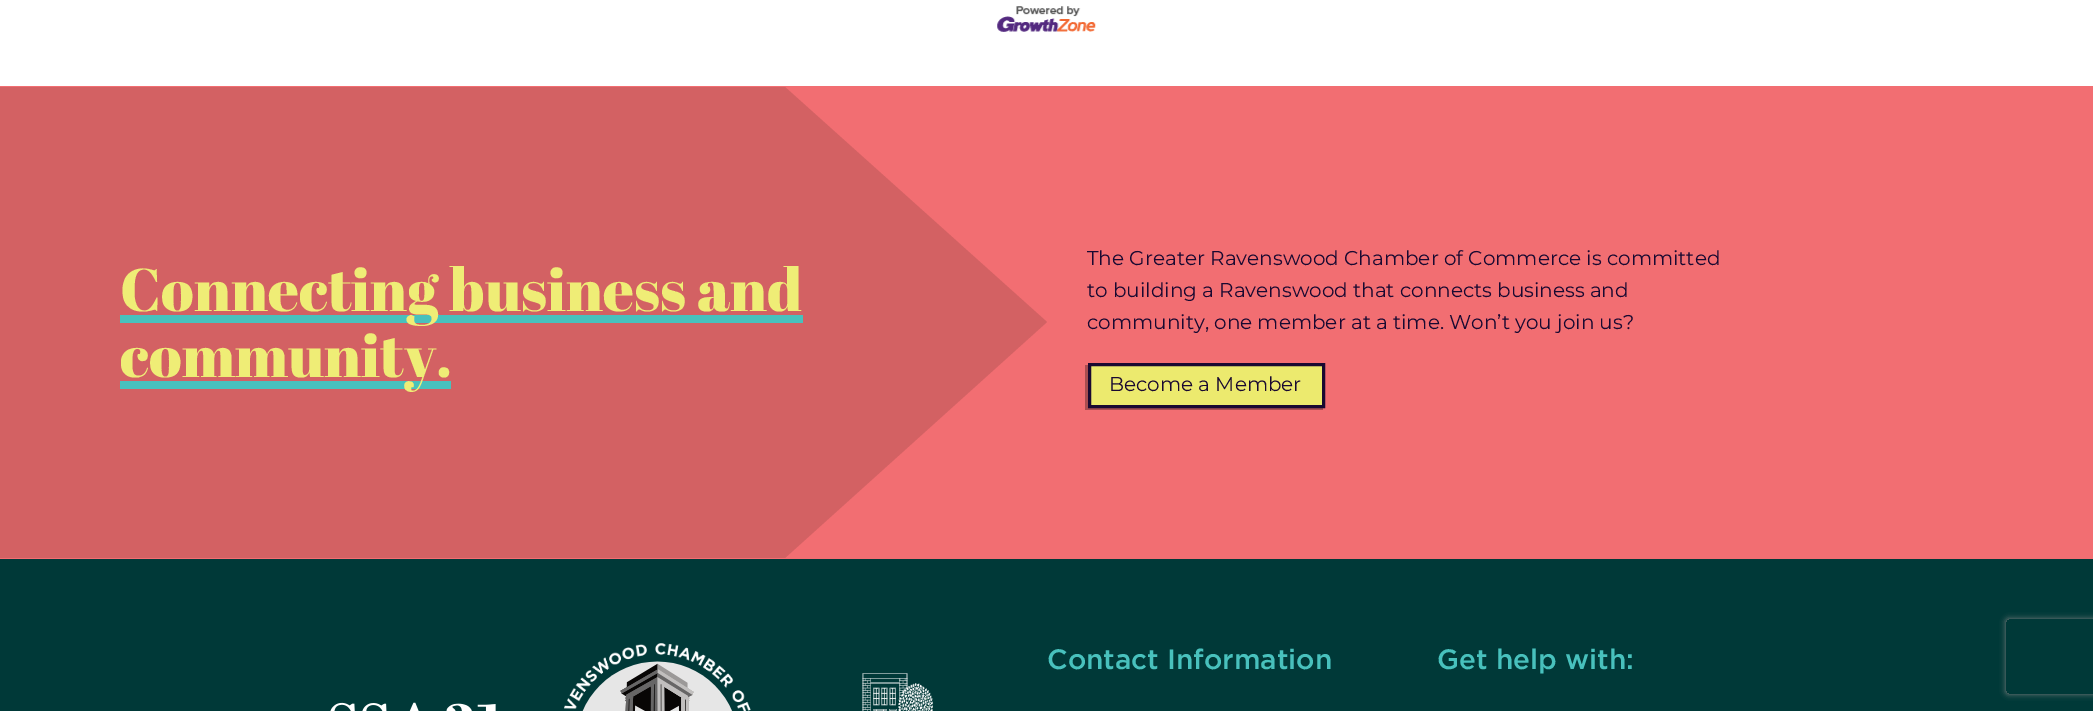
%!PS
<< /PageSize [2093 711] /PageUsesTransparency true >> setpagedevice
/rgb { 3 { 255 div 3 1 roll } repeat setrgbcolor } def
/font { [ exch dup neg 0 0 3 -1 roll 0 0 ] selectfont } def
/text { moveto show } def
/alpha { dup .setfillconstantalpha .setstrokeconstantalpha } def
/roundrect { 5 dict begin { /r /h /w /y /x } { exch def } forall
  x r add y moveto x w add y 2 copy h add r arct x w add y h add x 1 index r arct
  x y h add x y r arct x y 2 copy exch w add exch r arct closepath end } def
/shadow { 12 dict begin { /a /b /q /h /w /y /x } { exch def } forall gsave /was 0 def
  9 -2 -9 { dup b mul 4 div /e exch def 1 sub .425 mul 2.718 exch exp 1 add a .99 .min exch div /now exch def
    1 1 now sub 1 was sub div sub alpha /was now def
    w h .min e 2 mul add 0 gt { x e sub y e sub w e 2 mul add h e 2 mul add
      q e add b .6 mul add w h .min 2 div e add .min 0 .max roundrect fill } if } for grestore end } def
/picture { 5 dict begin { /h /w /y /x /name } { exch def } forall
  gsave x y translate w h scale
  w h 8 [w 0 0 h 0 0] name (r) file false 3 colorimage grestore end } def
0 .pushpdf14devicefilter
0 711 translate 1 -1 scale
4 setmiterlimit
255 255 255 rgb
0 0 2093 711 rectfill
(img_01.rgb) 997 6 99 26 picture
242 110 114 rgb
0 86 2093 473 rectfill
211 97 99 rgb
785 87 moveto -785 0 rlineto 0 471 rlineto 785 0 rlineto 262 -236 rlineto closepath fill
72 193 189 rgb
120 315 683 8 rectfill
120 381 331 8 rectfill
169 77 80 rgb
1085 365 moveto 0 45 rlineto 238 0 rlineto 0 -2 rlineto -235 0 rlineto 0 -43 rlineto closepath fill
236 234 110 rgb
1089.5 364.5 moveto 234 0 rlineto 0 42 rlineto -234 0 rlineto closepath gsave fill grestore
25 9 49 rgb
3 setlinewidth
stroke
0 57 56 rgb
0 559 2093 152 rectfill
(img_02.rgb) 330 702 166 9 picture
(img_03.rgb) 564 643 187 68 picture
(img_04.rgb) 862 673 71 38 picture
gsave
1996 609 moveto 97 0 rlineto 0 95 rlineto -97 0 rlineto closepath 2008.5 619 moveto 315 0 rlineto 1.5 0 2.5 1 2.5 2.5 rcurveto 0 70 rlineto 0 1.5 -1 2.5 -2.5 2.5 rcurveto -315 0 rlineto -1.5 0 -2.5 -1 -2.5 -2.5 rcurveto 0 -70 rlineto 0 -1.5 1 -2.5 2.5 -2.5 rcurveto closepath eoclip newpath
128 128 128 rgb
2006 619 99 75 2.5 3 1 shadow
grestore
/AbrilFatface-Regular 60 font
239 237 118 rgb
(Connecting business and) 120 311 text
(community.) 120 377 text
/Montserrat-Regular 20 font
25 9 49 rgb
(The Greater Ravenswood Chamber of Commerce is committed) 1087 265 text
(to building a Ravenswood that connects business and) 1087 297 text
(community, one member at a time. Won’t you join us?) 1087 329 text
(Become a Member) 1109 391 text
/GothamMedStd-Medium 28 font
72 193 189 rgb
(Contact Information) 1047 669 text
(Get help with:) 1437 669 text
.poppdf14devicefilter showpage
